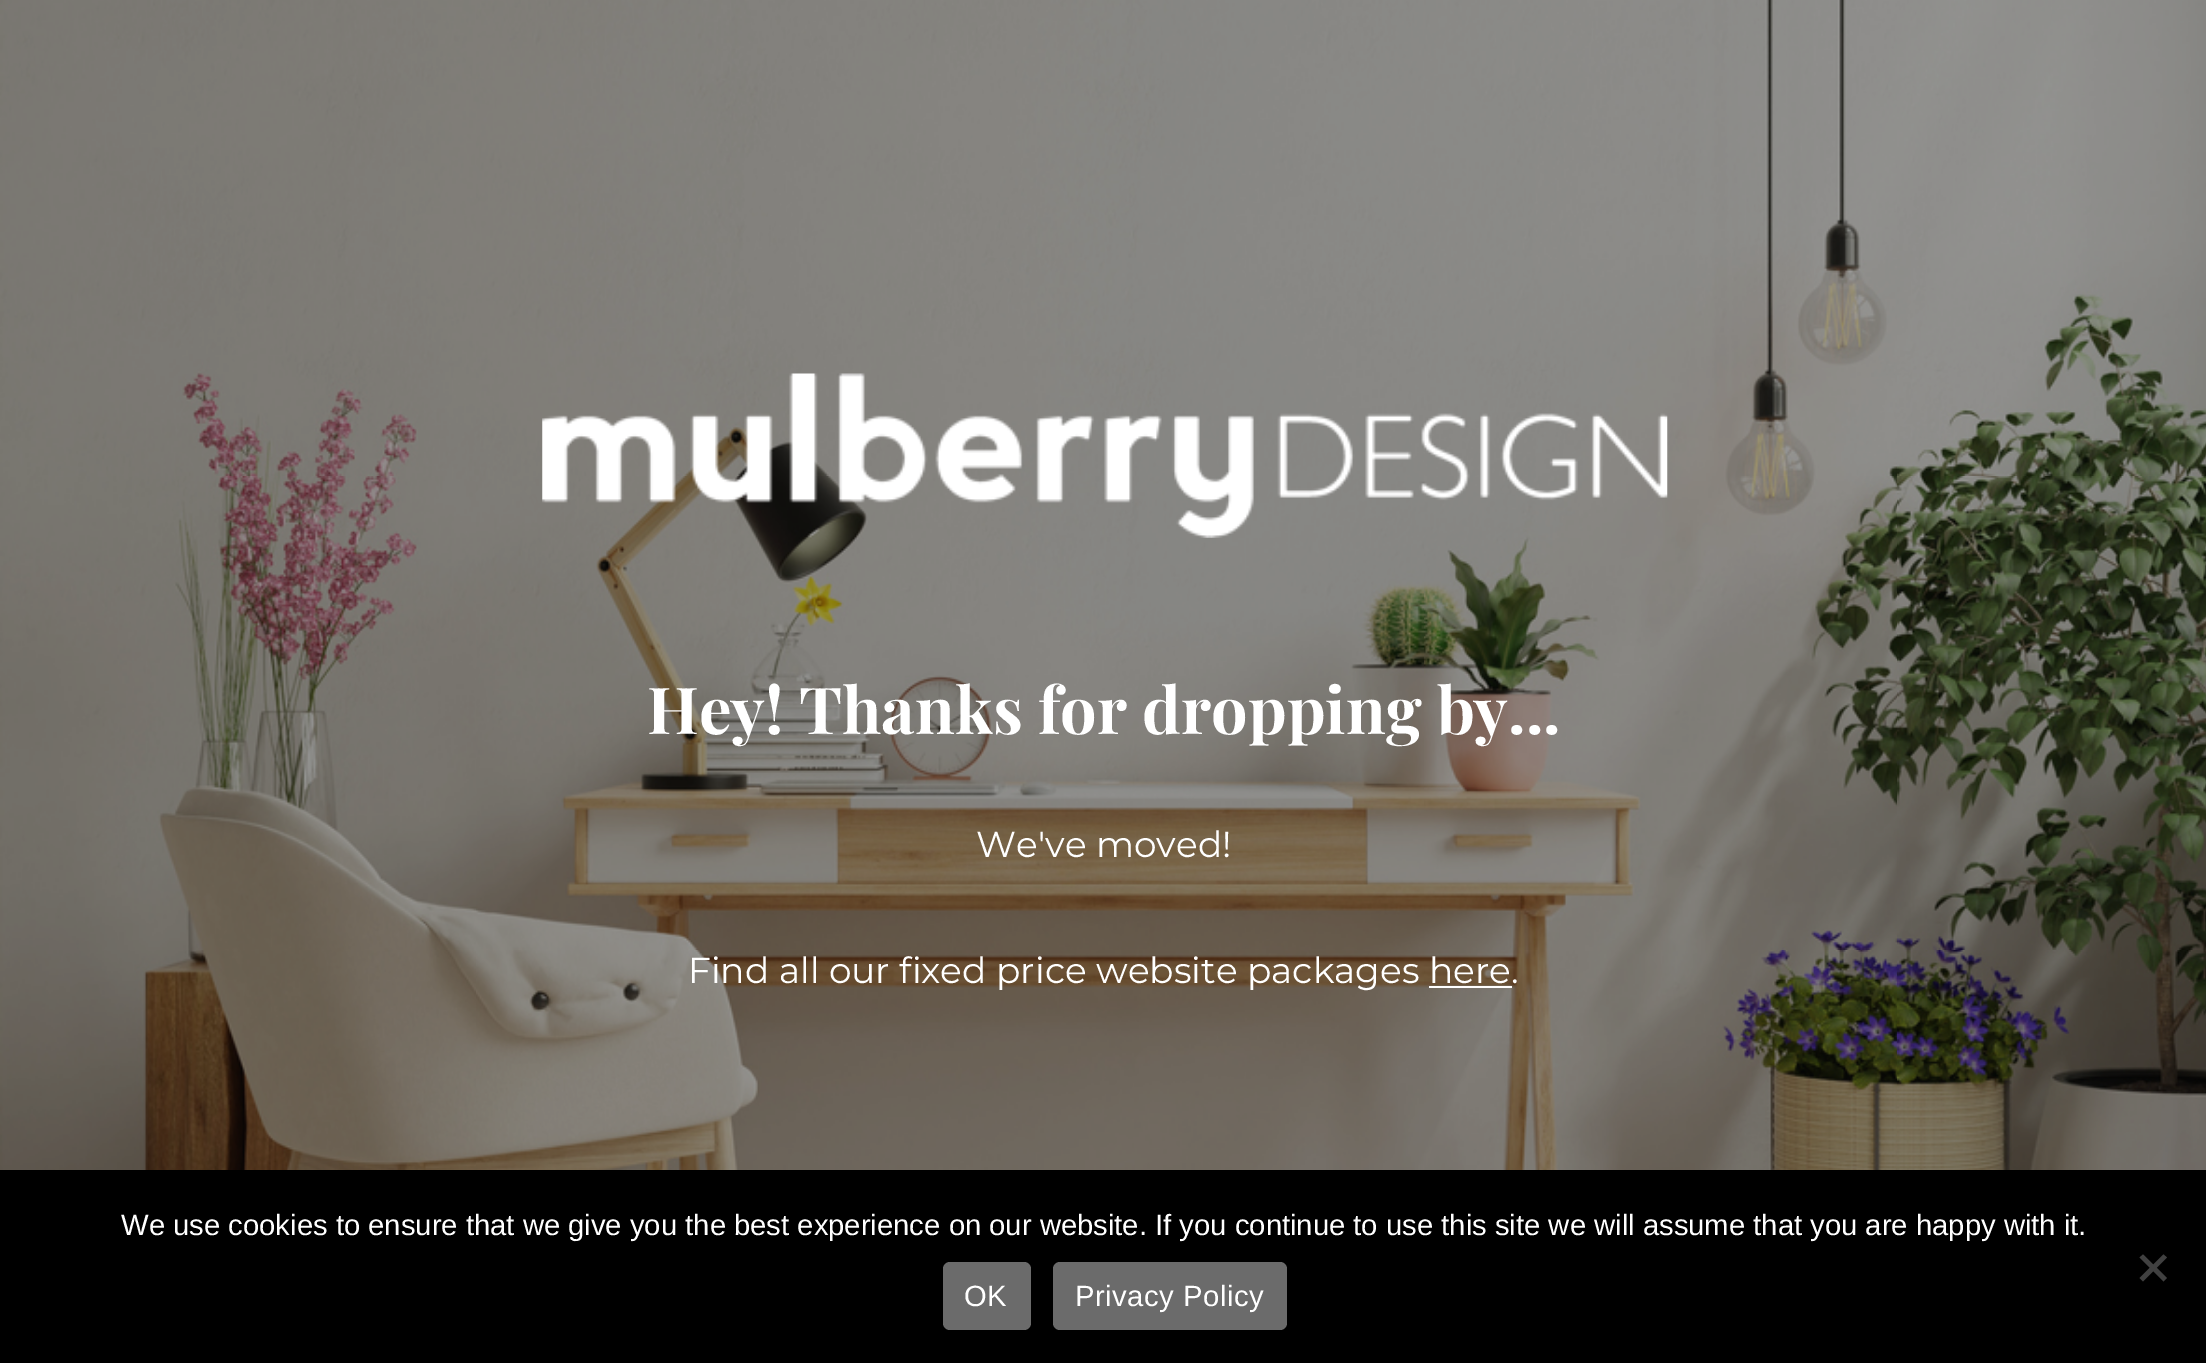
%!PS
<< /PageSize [2206 1363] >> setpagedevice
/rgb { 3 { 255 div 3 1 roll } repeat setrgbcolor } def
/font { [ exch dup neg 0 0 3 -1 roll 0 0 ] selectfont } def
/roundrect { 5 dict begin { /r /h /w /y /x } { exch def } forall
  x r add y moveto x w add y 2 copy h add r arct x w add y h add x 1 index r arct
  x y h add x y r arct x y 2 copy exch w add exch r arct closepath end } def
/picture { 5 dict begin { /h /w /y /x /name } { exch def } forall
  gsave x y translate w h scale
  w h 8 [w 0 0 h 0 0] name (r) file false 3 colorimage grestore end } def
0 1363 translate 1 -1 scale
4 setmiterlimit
255 255 255 rgb
0 0 2206 1363 rectfill
(img/1.rgb) 0 0 2206 1170 picture
(img/2.rgb) 542 373 1126 165 picture
1429 986 83 2 rectfill
0 0 0 rgb
0 1170 2206 193 rectfill
64 64 64 rgb
2163.5 1254.5 moveto 2167 1257.5 lineto 2143 1281.5 lineto 2139.5 1278 lineto closepath fill
2139.5 1257.5 moveto 2143 1254.5 lineto 2167 1278 lineto 2163.5 1281.5 lineto closepath fill
107 107 107 rgb
943 1262 88 68 7 roundrect fill
1053 1262 234 68 7 roundrect fill
/PlayfairDisplay-Bold 64.75 font
255 255 255 rgb
647 734 moveto (Hey! Thanks for dropping by...) show
/Montserrat-Regular 36 font
976 857 moveto (We've moved!) show
688 983 moveto (Find all our fixed price website packages here.) show
/LiberationSans-Regular 29.25 font
121 1235 moveto (We use cookies to ensure that we give you the best experience on our website. If you continue to use this site we will assume that you are happy with it.) show
964 1306 moveto 0.5 0 (OK) ashow
1075 1306 moveto 0.5 0 (Privacy Policy) ashow
showpage
